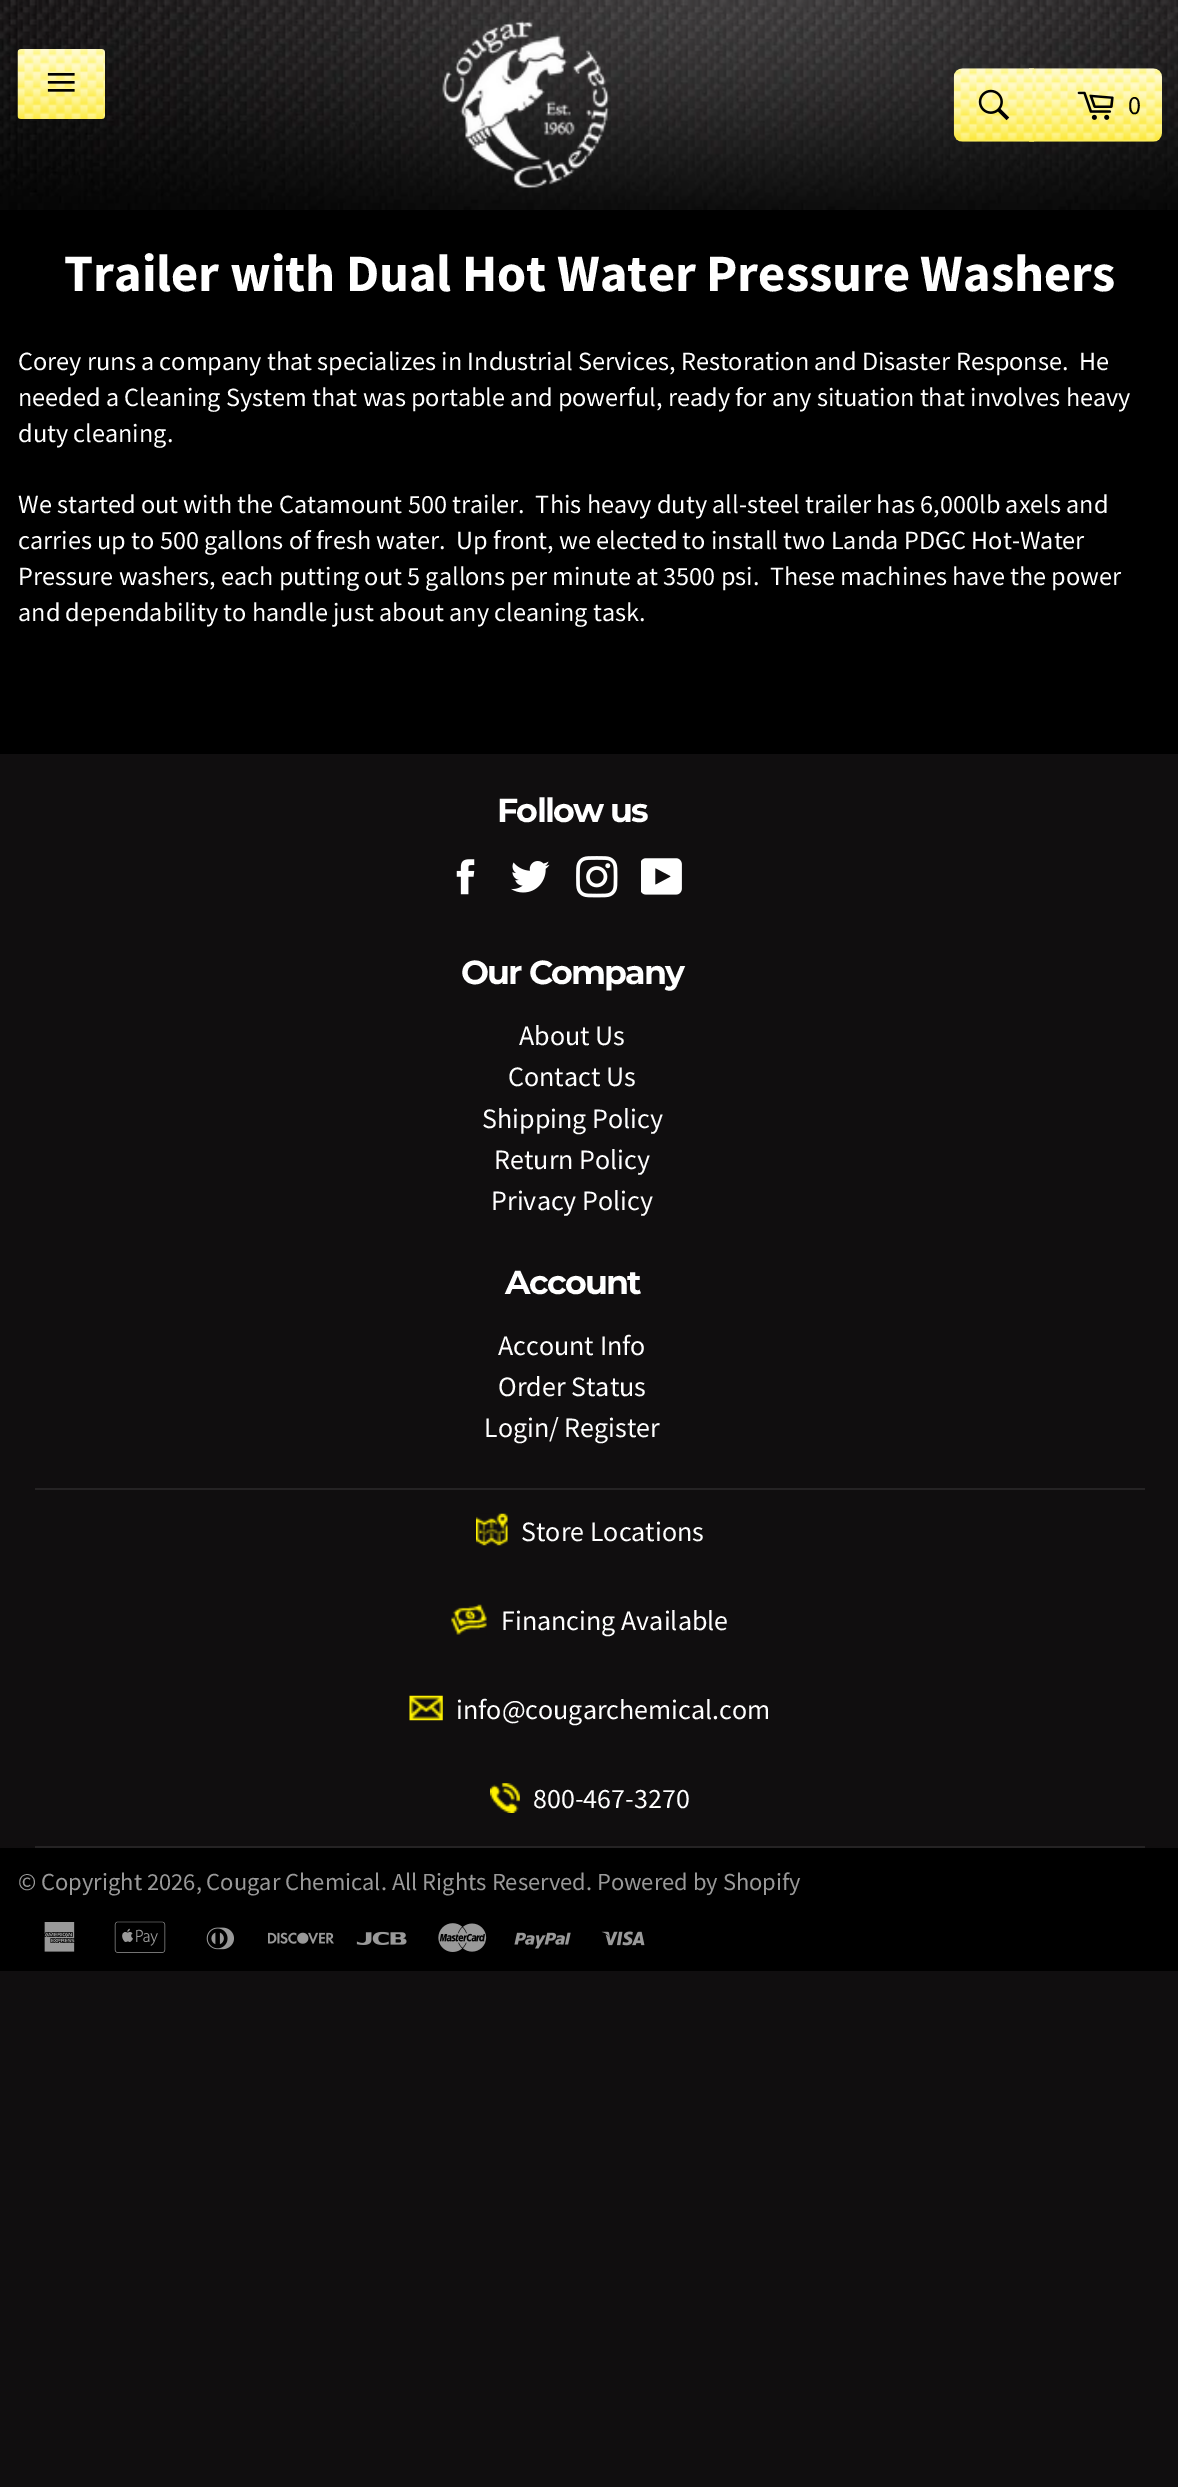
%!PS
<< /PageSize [1178 2487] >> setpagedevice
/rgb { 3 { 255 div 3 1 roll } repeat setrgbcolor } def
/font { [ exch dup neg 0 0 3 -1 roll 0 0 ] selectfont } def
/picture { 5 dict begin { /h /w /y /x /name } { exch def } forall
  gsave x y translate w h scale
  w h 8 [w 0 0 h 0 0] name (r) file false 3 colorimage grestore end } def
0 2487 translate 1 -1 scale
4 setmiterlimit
16 14 15 rgb
0 0 1178 2487 rectfill
0 0 0 rgb
0 210 1178 1761 rectfill
(img/1.rgb) 0 0 1178 210 picture
(img/2.rgb) 17 49 88 70 picture
(img/3.rgb) 47 72 28 20 picture
(img/4.rgb) 442 20 168 169 picture
(img/7.rgb) 1029 68 133 74 picture
(img/5.rgb) 953 68 81 74 picture
(img/6.rgb) 978 89 32 32 picture
(img/8.rgb) 1077 91 37 29 picture
16 14 15 rgb
0 754 1178 1094 rectfill
(img/9.rgb) 456 859 19 36 picture
(img/10.rgb) 511 861 39 32 picture
(img/11.rgb) 576 856 42 42 picture
(img/12.rgb) 641 858 41 37 picture
37 35 36 rgb
35 1488 1110 2 rectfill
35 1846 1110 2 rectfill
(img/13.rgb) 476 1513 32 33 picture
(img/14.rgb) 451 1604 36 31 picture
(img/15.rgb) 409 1695 34 26 picture
(img/16.rgb) 490 1783 30 30 picture
(img/17.rgb) 44 1922 31 30 picture
(img/18.rgb) 114 1921 52 32 picture
(img/19.rgb) 206 1927 28 23 picture
(img/20.rgb) 268 1932 66 12 picture
(img/21.rgb) 356 1931 51 14 picture
(img/22.rgb) 438 1923 49 29 picture
(img/23.rgb) 514 1932 57 17 picture
(img/24.rgb) 601 1931 44 15 picture
/SourceSansPro-Regular 26.25 font
0 0 0 rgb
1128 114 moveto (0) show
/SourceSansPro-Bold 52.5 font
255 255 255 rgb
64 291 moveto (Trailer with Dual Hot Water Pressure Washers) show
/SourceSansPro-Regular 26.25 font
[
  [(Corey runs a company that specializes in Industrial Services, Restoration and Disaster Response.  He) 18 370]
  [(needed a Cleaning System that was portable and powerful, ready for any situation that involves heavy) 18 406]
  [(duty cleaning.) 18 442]
  [(We started out with the Catamount 500 trailer.  This heavy duty all-steel trailer has 6,000lb axels and) 18 513]
  [(carries up to 500 gallons of fresh water.  Up front, we elected to install two Landa PDGC Hot-Water) 18 549]
  [(Pressure washers, each putting out 5 gallons per minute at 3500 psi.  These machines have the power) 18 585]
  [(and dependability to handle just about any cleaning task.) 18 621]
] { aload pop moveto show } forall
/Montserrat-Bold 33.25 font
497 822 moveto -1.75 0 (Follow us) ashow
461 984 moveto -1.75 0 (Our Company) ashow
/SourceSansPro-Regular 28 font
[
  [(About Us) 519 1045]
  [(Contact Us) 508 1086]
  [(Shipping Policy) 482 1128]
  [(Return Policy) 494 1169]
  [(Privacy Policy) 491 1210]
] { aload pop moveto show } forall
/Montserrat-Bold 33.25 font
505 1294 moveto -1.75 0 (Account) ashow
/SourceSansPro-Regular 28 font
[
  [(Account Info) 498 1355]
  [(Order Status) 498 1396]
  [(Login/ Register) 484 1437]
  [(Store Locations) 521 1541]
  [(Financing Available) 501 1630]
  [(info@cougarchemical.com) 456 1719]
  [(800-467-3270) 533 1808]
] { aload pop moveto show } forall
/SourceSansPro-Regular 24.5 font
153 153 153 rgb
18 1890 moveto (© Copyright 2026, Cougar Chemical. All Rights Reserved. Powered by Shopify) show
showpage
